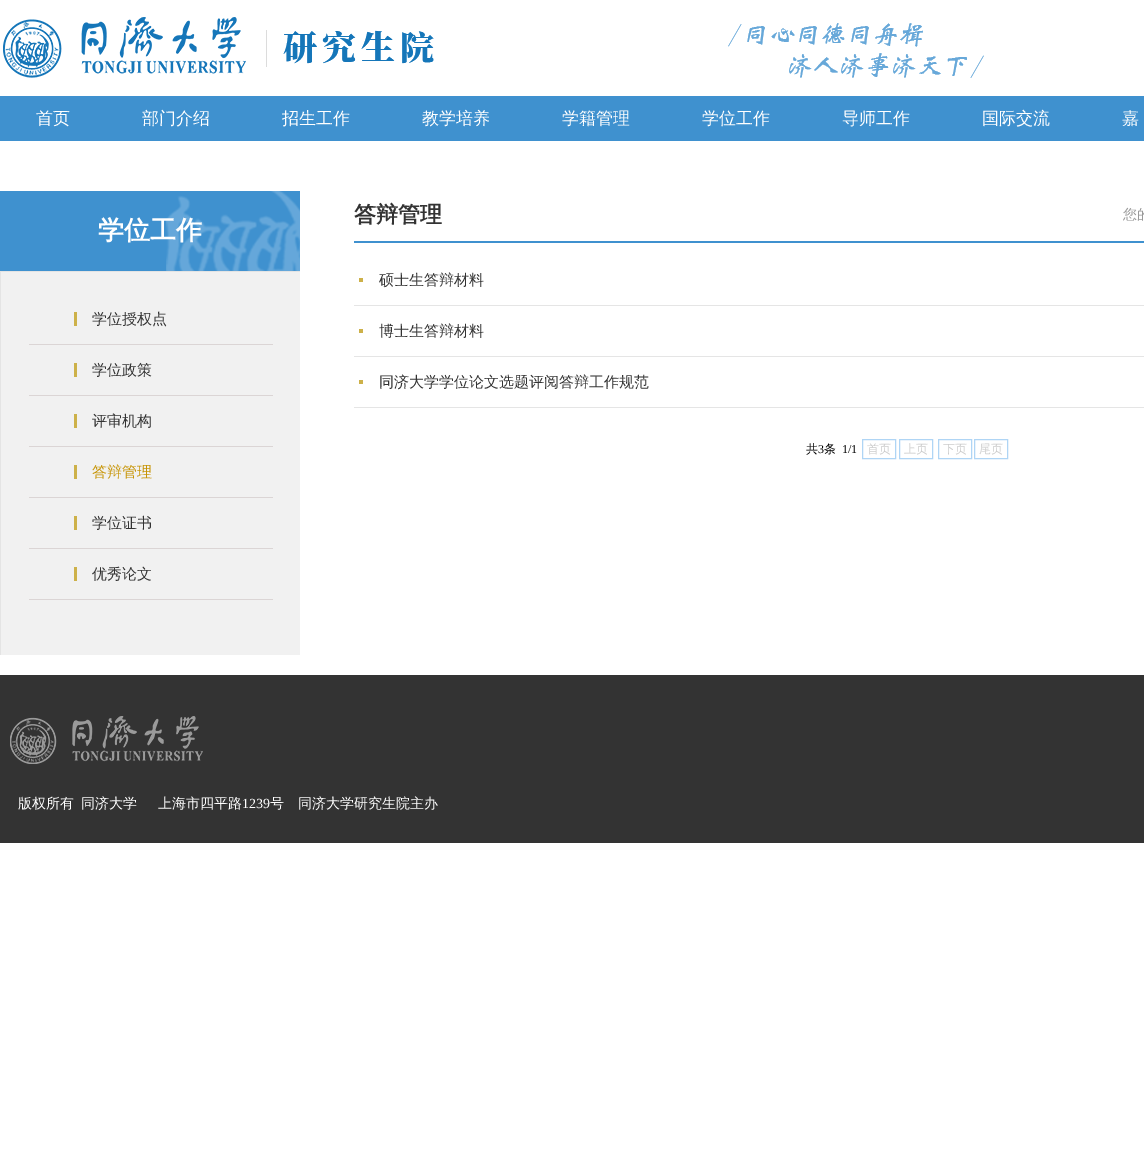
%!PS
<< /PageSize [1144 1176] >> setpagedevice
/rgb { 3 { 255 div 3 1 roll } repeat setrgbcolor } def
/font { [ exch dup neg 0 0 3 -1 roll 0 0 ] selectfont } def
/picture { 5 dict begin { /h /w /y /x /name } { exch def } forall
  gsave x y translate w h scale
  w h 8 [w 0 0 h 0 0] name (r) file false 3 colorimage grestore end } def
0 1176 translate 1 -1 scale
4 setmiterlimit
255 255 255 rgb
0 0 1144 1176 rectfill
(img/1.rgb) 728 23 256 55 picture
(img/2.rgb) 3 17 431 61 picture
63 145 207 rgb
0 96 1144 45 rectfill
(img/3.rgb) 0 191 300 80 picture
[
  [1 272 299 383 241 241 241]
  [0 271 300 1 228 228 228]
  [0 271 1 384 228 228 228]
  [74 312 3 14 205 177 73]
  [29 344 244 1 219 213 213]
  [74 363 3 14 205 177 73]
  [29 395 244 1 219 213 213]
  [74 414 3 14 205 177 73]
  [29 446 244 1 219 213 213]
  [74 465 3 14 205 177 73]
  [29 497 244 1 219 213 213]
  [74 516 3 14 205 177 73]
  [29 548 244 1 219 213 213]
  [74 567 3 14 205 177 73]
  [29 599 244 1 219 213 213]
  [354 241 790 2 63 145 207]
  [359 278 4 4 205 177 73]
  [354 305 790 1 229 229 229]
  [359 329 4 4 205 177 73]
  [354 356 790 1 229 229 229]
  [359 380 4 4 205 177 73]
  [354 407 790 1 229 229 229]
] { aload pop rgb rectfill } forall
175 213 245 rgb
862.5 439.5 33 19 rectstroke
899.5 439.5 33 19 rectstroke
938.5 439.5 33 19 rectstroke
974.5 439.5 33 19 rectstroke
51 51 51 rgb
0 675 1144 168 rectfill
(img/4.rgb) 10 716 193 48 picture
/WenQuanYiZenHei-Medium 17 font
255 255 255 rgb
[
  [(首页) 36 124]
  [(部门介绍) 142 124]
  [(招生工作) 282 124]
  [(教学培养) 422 124]
  [(学籍管理) 562 124]
  [(学位工作) 702 124]
  [(导师工作) 842 124]
  [(国际交流) 982 124]
  [(嘉) 1122 124]
] { aload pop moveto show } forall
/WenQuanYiZenHei-Bold 26 font
98 239 moveto (学位工作) show
/WenQuanYiZenHei-Medium 15 font
51 51 51 rgb
[
  [(学位授权点) 92 324]
  [(学位政策) 92 375]
  [(评审机构) 92 426]
] { aload pop moveto show } forall
199 148 4 rgb
92 477 moveto (答辩管理) show
51 51 51 rgb
92 528 moveto (学位证书) show
92 579 moveto (优秀论文) show
/WenQuanYiZenHei-Bold 22 font
354 222 moveto (答辩管理) show
/WenQuanYiZenHei-Medium 14 font
153 153 153 rgb
1123 219 moveto (您的) show
/WenQuanYiZenHei-Medium 15 font
51 51 51 rgb
[
  [(硕士生答辩材料) 379 285]
  [(博士生答辩材料) 379 336]
  [(同济大学学位论文选题评阅答辩工作规范) 379 387]
] { aload pop moveto show } forall
/WenQuanYiZenHei-Medium 12 font
0 0 0 rgb
806 453 moveto (共) show
/LiberationSerif-Regular 12 font
818 453 moveto (3) show
/WenQuanYiZenHei-Medium 12 font
824 453 moveto (条) show
/LiberationSerif-Regular 12 font
842 453 moveto (1/1) show
/WenQuanYiZenHei-Medium 12 font
204 204 204 rgb
[
  [(首页) 867 453]
  [(上页) 904 453]
  [(下页) 943 453]
  [(尾页) 979 453]
] { aload pop moveto show } forall
/WenQuanYiZenHei-Medium 14 font
255 255 255 rgb
[
  [(版权所有) 18 808]
  [(同济大学) 81 808]
  [(上海市四平路) 158 808]
] { aload pop moveto show } forall
/LiberationSerif-Regular 14 font
242 808 moveto (1239) show
/WenQuanYiZenHei-Medium 14 font
270 808 moveto (号) show
298 808 moveto (同济大学研究生院主办) show
showpage
